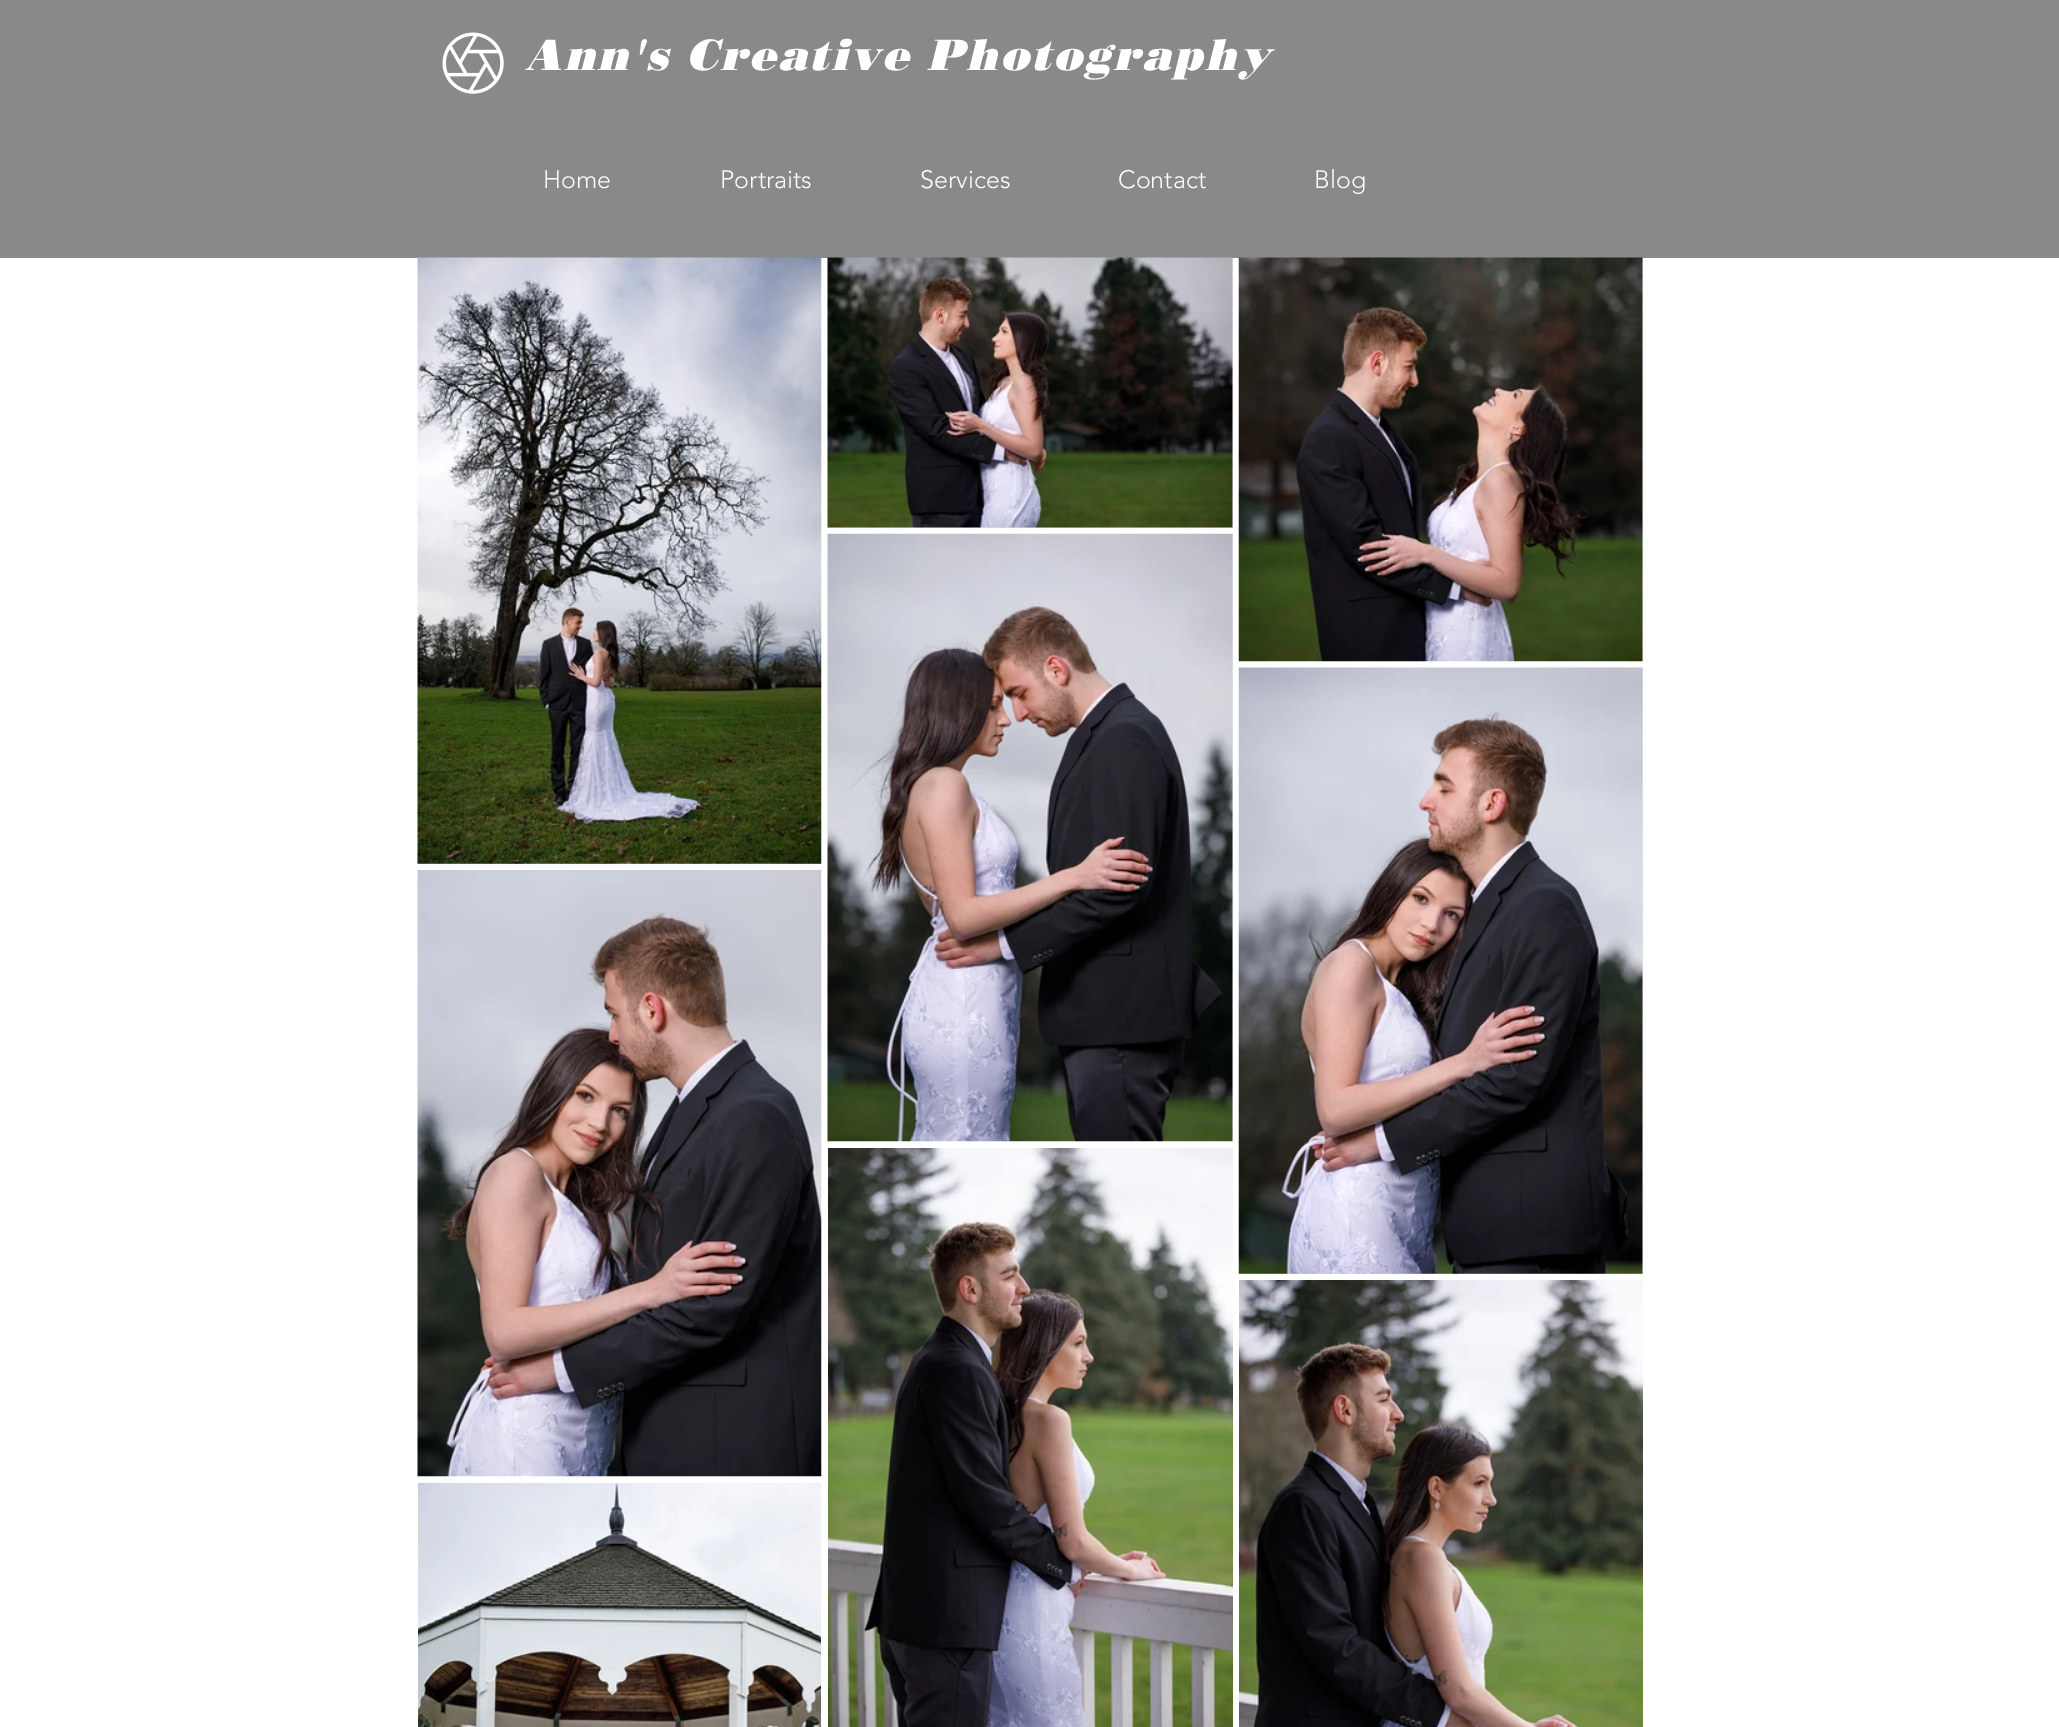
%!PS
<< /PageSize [2059 1727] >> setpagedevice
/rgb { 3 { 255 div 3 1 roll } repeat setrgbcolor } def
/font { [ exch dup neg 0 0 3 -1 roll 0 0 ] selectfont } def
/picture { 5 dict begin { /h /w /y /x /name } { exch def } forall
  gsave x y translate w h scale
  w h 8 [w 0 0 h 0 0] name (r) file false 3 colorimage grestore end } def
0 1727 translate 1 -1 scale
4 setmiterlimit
255 255 255 rgb
0 0 2059 1727 rectfill
137 137 137 rgb
0 0 2059 258 rectfill
(img/1.rgb) 442 32 62 62 picture
(img/2.rgb) 417 257 405 607 picture
228 228 235 rgb
828 258 405 270 rectfill
(img/3.rgb) 827 257 406 271 picture
1642 258 1 403 rectfill
(img/4.rgb) 1238 257 405 405 picture
(img/5.rgb) 417 870 405 607 picture
1232 534 1 607 rectfill
(img/6.rgb) 827 533 406 609 picture
1239 668 404 606 rectfill
(img/7.rgb) 1238 667 405 607 picture
(img/8.rgb) 418 1483 403 244 picture
(img/9.rgb) 828 1148 405 579 picture
(img/10.rgb) 1239 1280 404 447 picture
/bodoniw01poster-BlackItalic 43.75 font
255 255 255 rgb
525 70 moveto 2.2 0 (Ann's Creative Photography) ashow
/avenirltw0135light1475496-Light 25 font
[
  [(Home) 543 188]
  [(Portraits) 720 188]
  [(Services) 920 188]
  [(Contact) 1118 188]
  [(Blog) 1314 188]
] { aload pop moveto show } forall
showpage
